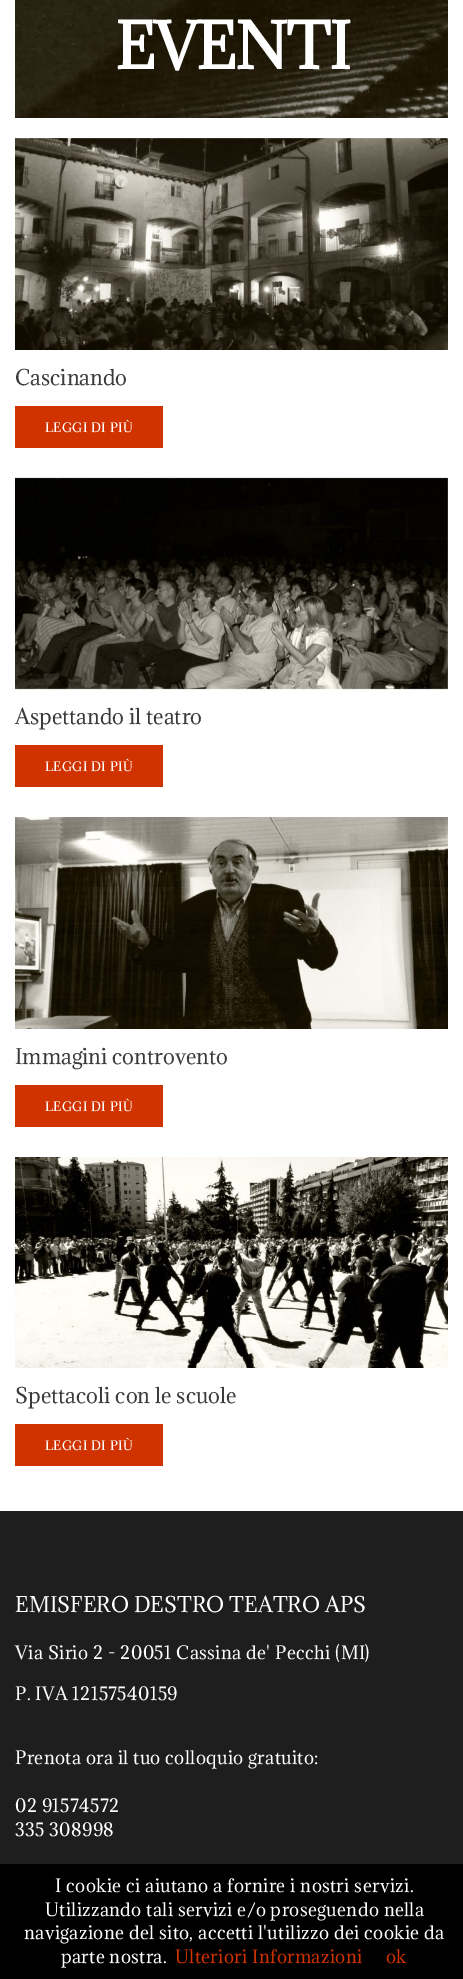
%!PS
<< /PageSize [463 1979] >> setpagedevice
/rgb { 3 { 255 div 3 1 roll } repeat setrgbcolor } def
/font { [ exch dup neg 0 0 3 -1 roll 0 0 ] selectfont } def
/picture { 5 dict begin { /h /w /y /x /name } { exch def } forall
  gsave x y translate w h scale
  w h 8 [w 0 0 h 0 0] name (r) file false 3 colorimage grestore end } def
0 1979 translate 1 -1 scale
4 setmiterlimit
255 255 255 rgb
0 0 463 1979 rectfill
(img/1.rgb) 15 0 433 118 picture
(img/2.rgb) 15 138 433 212 picture
208 50 0 rgb
15 406 148 42 rectfill
(img/3.rgb) 15 477 433 213 picture
15 745 148 42 rectfill
(img/4.rgb) 15 817 433 212 picture
15 1085 148 42 rectfill
(img/5.rgb) 15 1157 433 211 picture
[
  [15 1424 148 42 208 50 0]
  [0 1511 463 353 30 30 30]
  [0 1864 463 115 0 0 0]
] { aload pop rgb rectfill } forall
/Adamina-Bold 60 font
255 255 255 rgb
115 69 moveto -2 0 (EVENTI) ashow
/Adamina-Regular 20 font
58 58 58 rgb
15 385 moveto (Cascinando) show
/Adamina-Regular 12 font
255 255 255 rgb
45 432 moveto 0.35 0 (LEGGI DI PIÙ) ashow
/Adamina-Regular 20 font
58 58 58 rgb
15 724 moveto (Aspettando il teatro) show
/Adamina-Regular 12 font
255 255 255 rgb
45 771 moveto 0.35 0 (LEGGI DI PIÙ) ashow
/Adamina-Regular 20 font
58 58 58 rgb
15 1064 moveto (Immagini controvento) show
/Adamina-Regular 12 font
255 255 255 rgb
45 1111 moveto 0.35 0 (LEGGI DI PIÙ) ashow
/Adamina-Regular 20 font
58 58 58 rgb
15 1403 moveto (Spettacoli con le scuole) show
/Adamina-Regular 12 font
255 255 255 rgb
45 1450 moveto 0.35 0 (LEGGI DI PIÙ) ashow
/Adamina-Regular 20 font
15 1612 moveto (EMISFERO DESTRO TEATRO APS) show
/Adamina-Regular 17 font
15 1659 moveto 0.35 0 (Via Sirio 2 - 20051 Cassina de' Pecchi \(MI\)) ashow
15 1700 moveto 0.35 0 (P. IVA 12157540159) ashow
15 1764 moveto 0.35 0 (Prenota ora il tuo colloquio gratuito:) ashow
15 1812 moveto 0.35 0 (02 91574572) ashow
15 1836 moveto 0.35 0 (335 308998) ashow
55 1892 moveto 0.35 0 (I cookie ci aiutano a fornire i nostri servizi.) ashow
45 1916 moveto 0.35 0 (Utilizzando tali servizi e/o proseguendo nella) ashow
24 1939 moveto 0.35 0 (navigazione del sito, accetti l'utilizzo dei cookie da) ashow
61 1963 moveto 0.35 0 (parte nostra.) ashow
208 50 0 rgb
175 1963 moveto 0.35 0 (Ulteriori Informazioni) ashow
386 1963 moveto 0.35 0 (ok) ashow
showpage
